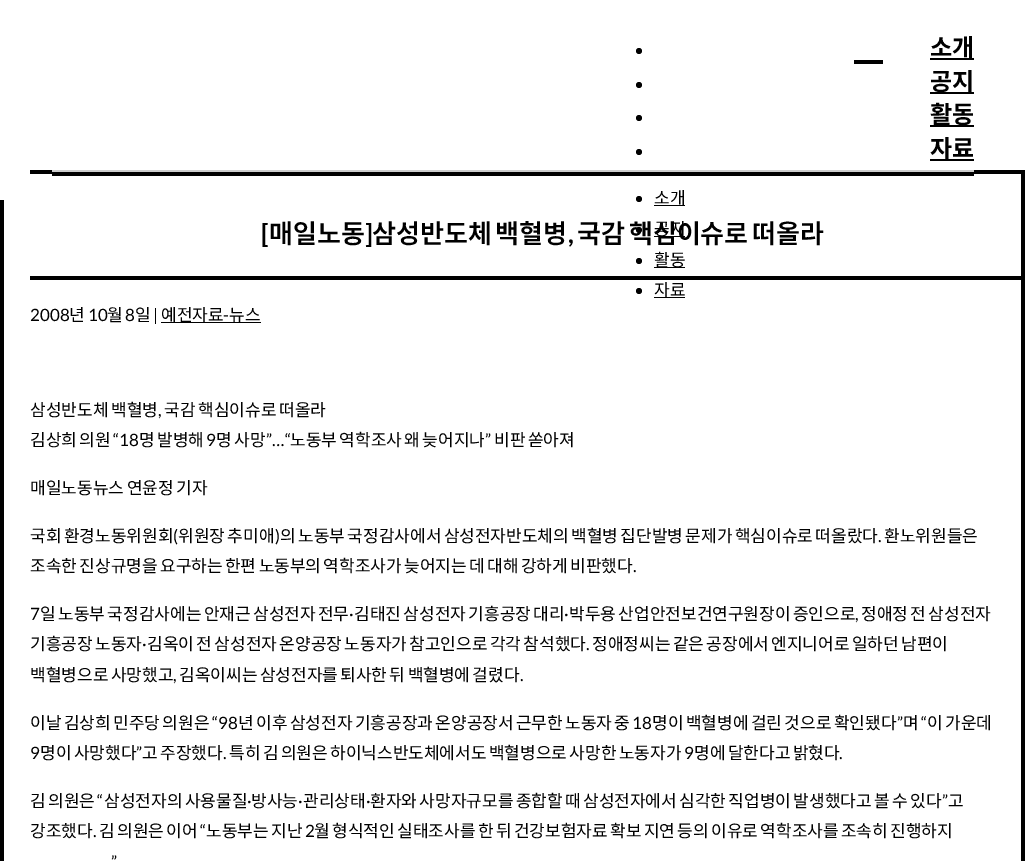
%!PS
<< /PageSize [1025 861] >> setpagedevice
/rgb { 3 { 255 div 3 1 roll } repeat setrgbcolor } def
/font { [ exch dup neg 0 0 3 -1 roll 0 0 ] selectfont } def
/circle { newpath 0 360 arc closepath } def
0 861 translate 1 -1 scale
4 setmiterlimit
255 255 255 rgb
0 0 1025 861 rectfill
0 0 0 rgb
52 174 922 2 rectfill
639 51 3 circle fill
930 58 44 2 rectfill
639 85 3 circle fill
930 92 44 2 rectfill
639 118 3 circle fill
930 125 44 2 rectfill
639 152 3 circle fill
930 159 44 2 rectfill
639 199 3 circle fill
654 205 31 1 rectfill
639 230 3 circle fill
654 236 31 1 rectfill
639 261 3 circle fill
654 267 31 1 rectfill
639 291 3 circle fill
[
  [654 297 31 1 0 0 0]
  [854 60 29 4 0 0 0]
  [30 276 995 4 0 0 0]
  [161 322 100 1 0 0 0]
  [0 200 4 661 0 0 0]
  [30 170 995 4 0 0 0]
  [52 170 922 2 204 204 204]
  [1021 170 4 691 0 0 0]
] { aload pop rgb rectfill } forall
/NotoSansKR-Bold 24 font
[
  [(소개) 930 56]
  [(공지) 930 90]
  [(활동) 930 123]
  [(자료) 930 157]
] { aload pop moveto show } forall
/NotoSansKR-Regular 17 font
[
  [(소개) 654 204]
  [(활동) 654 266]
  [(자료) 654 296]
] { aload pop moveto show } forall
/Lato-Bold 26 font
261 243 moveto ([) show
/NotoSansKR-SemiBold 26 font
269 243 moveto (매일노동) show
/Lato-Bold 26 font
365 243 moveto (]) show
/NotoSansKR-SemiBold 26 font
372 243 moveto -2 0 32 (삼성반도체 백혈병) widthshow
/Lato-Bold 26 font
568 243 moveto (,) show
/NotoSansKR-SemiBold 26 font
577 243 moveto -2 0 32 (국감 핵심이슈로 떠올라) widthshow
/NotoSansKR-Regular 17 font
654 235 moveto (공지) show
/Lato-Regular 17 font
30 321 moveto (2008) show
/NotoSansKR-Regular 17 font
69 321 moveto (년) show
/Lato-Regular 17 font
88 321 moveto (10) show
/NotoSansKR-Regular 17 font
107 321 moveto (월) show
/Lato-Regular 17 font
125 321 moveto (8) show
/NotoSansKR-Regular 17 font
135 321 moveto (일) show
/Lato-Regular 17 font
153 321 moveto (|) show
/NotoSansKR-Regular 17 font
161 321 moveto (예전자료) show
/Lato-Regular 17 font
223 321 moveto (-) show
/NotoSansKR-Regular 17 font
229 321 moveto (뉴스) show
30 416 moveto -1 0 32 (삼성반도체 백혈병) widthshow
/Lato-Regular 17 font
158 416 moveto (,) show
/NotoSansKR-Regular 17 font
164 416 moveto -1 0 32 (국감 핵심이슈로 떠올라) widthshow
30 446 moveto -1.4 0 32 (김상희 의원) widthshow
/Lato-Regular 17 font
113 446 moveto (“18) show
/NotoSansKR-Regular 17 font
139 446 moveto -1.4 0 32 (명 발병해) widthshow
/Lato-Regular 17 font
206 446 moveto (9) show
/NotoSansKR-Regular 17 font
216 446 moveto -1.4 0 32 (명 사망) widthshow
/Lato-Regular 17 font
266 446 moveto (”…“) show
/NotoSansKR-Regular 17 font
290 446 moveto -1.4 0 32 (노동부 역학조사 왜 늦어지나) widthshow
/Lato-Regular 17 font
485 446 moveto (”) show
/NotoSansKR-Regular 17 font
494 446 moveto -1.4 0 32 (비판 쏟아져) widthshow
30 494 moveto -1 0 32 (매일노동뉴스 연윤정 기자) widthshow
30 542 moveto -1.4 0 32 (국회 환경노동위원회) widthshow
/Lato-Regular 17 font
173 542 moveto (\() show
/NotoSansKR-Regular 17 font
178 542 moveto -1.4 0 32 (위원장 추미애) widthshow
/Lato-Regular 17 font
275 542 moveto (\)) show
/NotoSansKR-Regular 17 font
280 542 moveto -1.4 0 32 (의 노동부 국정감사에서 삼성전자반도체의 백혈병 집단발병 문제가 핵심이슈로 떠올랐다) widthshow
/Lato-Regular 17 font
878 542 moveto (.) show
/NotoSansKR-Regular 17 font
884 542 moveto (환노위원들은) show
30 572 moveto -1.4 0 32 (조속한 진상규명을 요구하는 한편 노동부의 역학조사가 늦어지는 데 대해 강하게 비판했다) widthshow
/Lato-Regular 17 font
633 572 moveto (.) show
30 620 moveto (7) show
/NotoSansKR-Regular 17 font
40 620 moveto -1.4 0 32 (일 노동부 국정감사에는 안재근 삼성전자 전무) widthshow
/Lato-Regular 17 font
349 620 moveto (·) show
/NotoSansKR-Regular 17 font
354 620 moveto -1.4 0 32 (김태진 삼성전자 기흥공장 대리) widthshow
/Lato-Regular 17 font
564 620 moveto (·) show
/NotoSansKR-Regular 17 font
569 620 moveto -1.4 0 32 (박두용 산업안전보건연구원장이 증인으로) widthshow
861 620 moveto -1.4 0 32 (정애정 전 삼성전자) widthshow
/Lato-Regular 17 font
855 620 moveto (,) show
/NotoSansKR-Regular 17 font
30 650 moveto -1.4 0 32 (기흥공장 노동자) widthshow
/Lato-Regular 17 font
142 650 moveto (·) show
/NotoSansKR-Regular 17 font
147 650 moveto -1.4 0 32 (김옥이 전 삼성전자 온양공장 노동자가 참고인으로 각각 참석했다) widthshow
592 650 moveto -1.4 0 32 (정애정씨는 같은 공장에서 엔지니어로 일하던 남편이) widthshow
/Lato-Regular 17 font
586 650 moveto (.) show
/NotoSansKR-Regular 17 font
30 681 moveto -1.4 0 32 (백혈병으로 사망했고) widthshow
/Lato-Regular 17 font
173 681 moveto (,) show
/NotoSansKR-Regular 17 font
179 681 moveto -1.4 0 32 (김옥이씨는 삼성전자를 퇴사한 뒤 백혈병에 걸렸다) widthshow
/Lato-Regular 17 font
520 681 moveto (.) show
/NotoSansKR-Regular 17 font
30 729 moveto -1.4 0 32 (이날 김상희 민주당 의원은) widthshow
/Lato-Regular 17 font
212 729 moveto (“98) show
/NotoSansKR-Regular 17 font
238 729 moveto -1.4 0 32 (년 이후 삼성전자 기흥공장과 온양공장서 근무한 노동자 중) widthshow
/Lato-Regular 17 font
632 729 moveto (18) show
/NotoSansKR-Regular 17 font
652 729 moveto -1.4 0 32 (명이 백혈병에 걸린 것으로 확인됐다) widthshow
/Lato-Regular 17 font
897 729 moveto (”) show
/NotoSansKR-Regular 17 font
903 729 moveto (며) show
/Lato-Regular 17 font
921 729 moveto (“) show
/NotoSansKR-Regular 17 font
927 729 moveto -1.4 0 32 (이 가운데) widthshow
/Lato-Regular 17 font
30 759 moveto (9) show
/NotoSansKR-Regular 17 font
40 759 moveto -1.4 0 32 (명이 사망했다) widthshow
/Lato-Regular 17 font
136 759 moveto (”) show
/NotoSansKR-Regular 17 font
142 759 moveto -1.4 0 32 (고 주장했다) widthshow
/Lato-Regular 17 font
223 759 moveto (.) show
/NotoSansKR-Regular 17 font
229 759 moveto -1.4 0 32 (특히 김 의원은 하이닉스반도체에서도 백혈병으로 사망한 노동자가) widthshow
/Lato-Regular 17 font
684 759 moveto (9) show
/NotoSansKR-Regular 17 font
694 759 moveto -1.4 0 32 (명에 달한다고 밝혔다) widthshow
/Lato-Regular 17 font
839 759 moveto (.) show
/NotoSansKR-Regular 17 font
30 807 moveto -1.4 0 32 (김 의원은) widthshow
/Lato-Regular 17 font
97 807 moveto (“) show
/NotoSansKR-Regular 17 font
104 807 moveto -1.4 0 32 (삼성전자의 사용물질) widthshow
/Lato-Regular 17 font
247 807 moveto (·) show
/NotoSansKR-Regular 17 font
251 807 moveto (방사능) show
/Lato-Regular 17 font
298 807 moveto (·) show
/NotoSansKR-Regular 17 font
303 807 moveto (관리상태) show
/Lato-Regular 17 font
366 807 moveto (·) show
/NotoSansKR-Regular 17 font
370 807 moveto -1.4 0 32 (환자와 사망자규모를 종합할 때 삼성전자에서 심각한 직업병이 발생했다고 볼 수 있다) widthshow
/Lato-Regular 17 font
942 807 moveto (”) show
/NotoSansKR-Regular 17 font
948 807 moveto (고) show
30 837 moveto (강조했다) show
/Lato-Regular 17 font
93 837 moveto (.) show
/NotoSansKR-Regular 17 font
99 837 moveto -1.4 0 32 (김 의원은 이어) widthshow
/Lato-Regular 17 font
200 837 moveto (“) show
/NotoSansKR-Regular 17 font
206 837 moveto -1.4 0 32 (노동부는 지난) widthshow
/Lato-Regular 17 font
305 837 moveto (2) show
/NotoSansKR-Regular 17 font
314 837 moveto -1.4 0 32 (월 형식적인 실태조사를 한 뒤 건강보험자료 확보 지연 등의 이유로 역학조사를 조속히 진행하지) widthshow
/Lato-Regular 17 font
111 868 moveto (”) show
showpage
